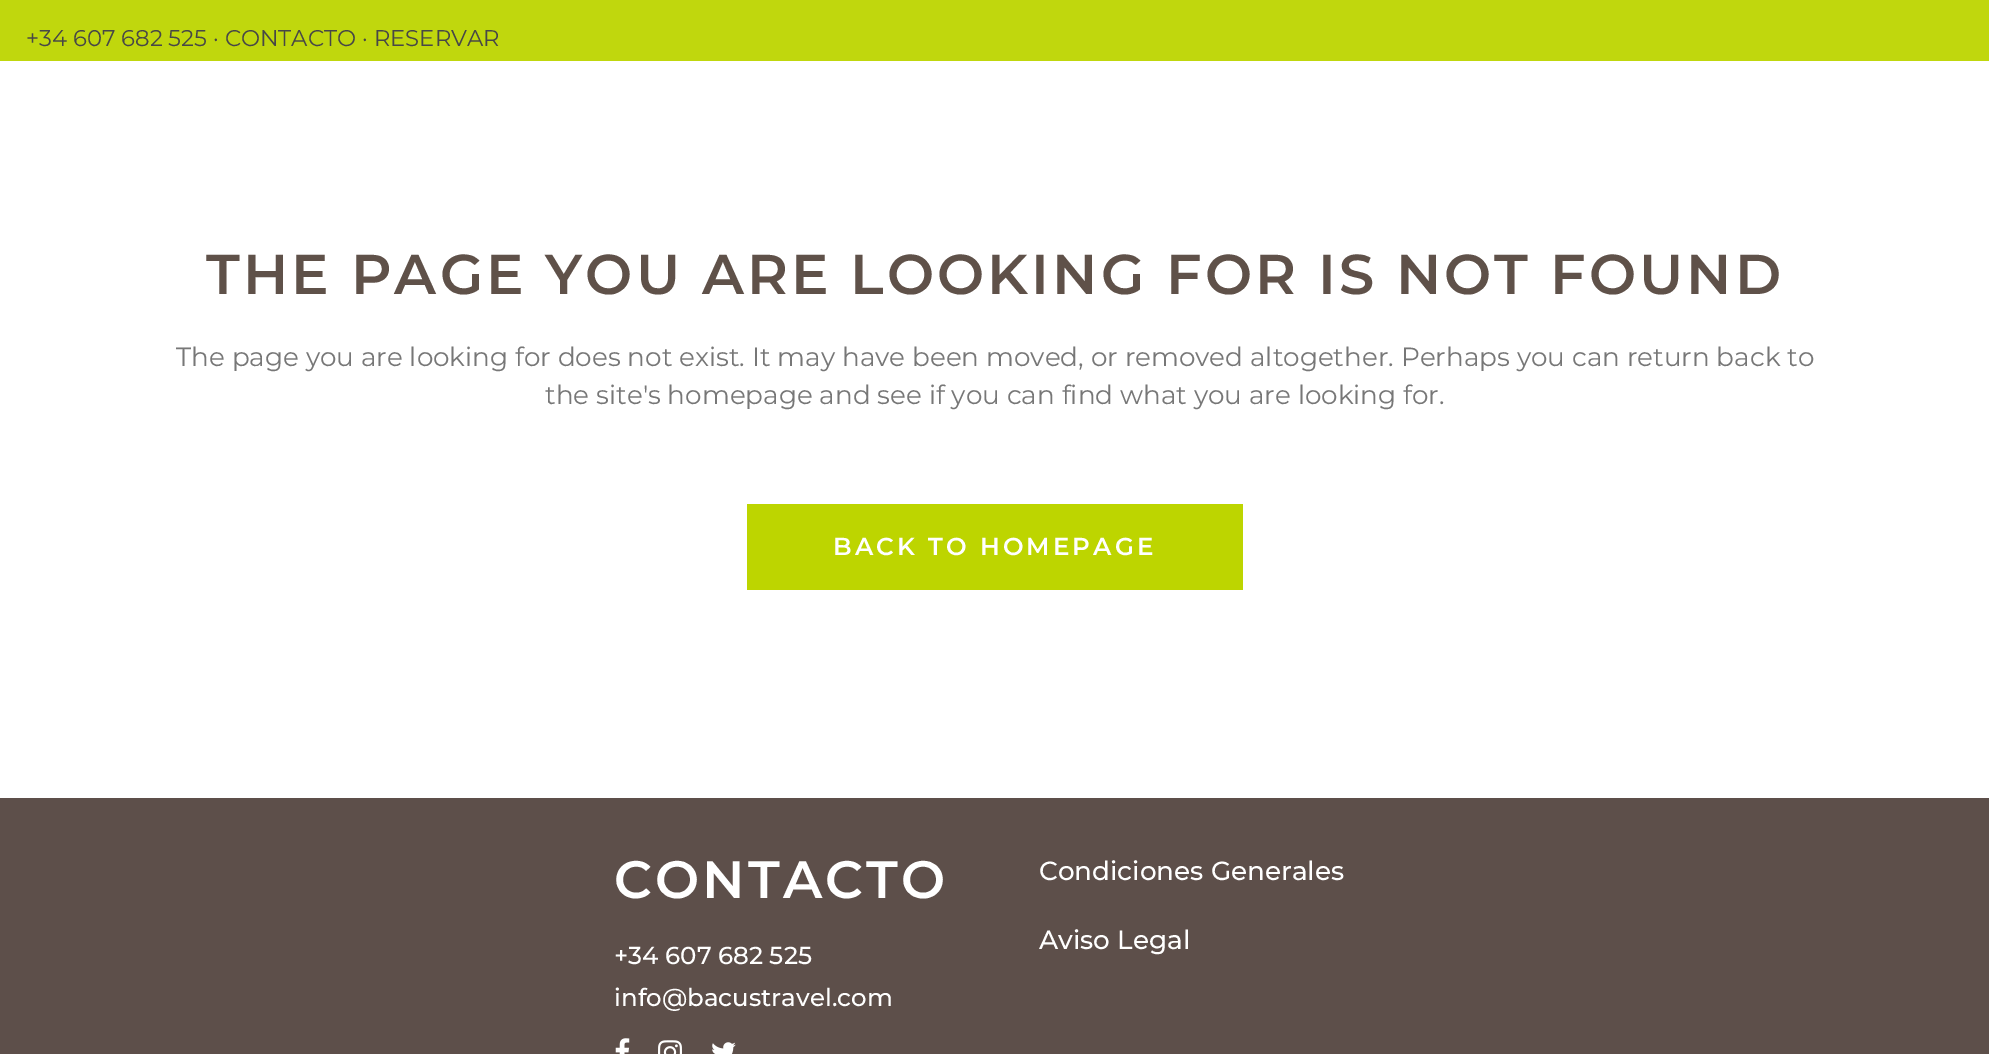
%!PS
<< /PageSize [1989 1054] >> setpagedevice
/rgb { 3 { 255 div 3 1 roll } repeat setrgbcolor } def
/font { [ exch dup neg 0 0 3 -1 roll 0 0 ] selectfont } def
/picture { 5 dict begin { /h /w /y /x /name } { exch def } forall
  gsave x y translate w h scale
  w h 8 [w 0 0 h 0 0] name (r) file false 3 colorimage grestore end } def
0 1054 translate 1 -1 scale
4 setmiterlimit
255 255 255 rgb
0 0 1989 1054 rectfill
[
  [0 0 1989 61 192 215 13]
  [747 504 496 86 189 213 0]
  [0 798 1989 256 93 79 74]
] { aload pop rgb rectfill } forall
(img/1.rgb) 615 1038 15 16 picture
(img/2.rgb) 658 1040 24 14 picture
(img/3.rgb) 712 1042 24 12 picture
/Montserrat-Regular 22.75 font
71 71 71 rgb
26 46 moveto (+34 607 682 525 · CONTACTO · RESERVAR) show
/Montserrat-SemiBold 56 font
95 81 73 rgb
206 294 moveto 3.15 0 (THE PAGE YOU ARE LOOKING FOR IS NOT FOUND) ashow
/Montserrat-Regular 26.25 font
119 119 119 rgb
176 366 moveto (The page you are looking for does not exist. It may have been moved, or removed altogether. Perhaps you can return back to) show
545 404 moveto (the site's homepage and see if you can find what you are looking for.) show
/Montserrat-SemiBold 24.5 font
255 255 255 rgb
833 555 moveto 3.15 0 (BACK TO HOMEPAGE) ashow
/Montserrat-SemiBold 52.5 font
614 898 moveto 3.15 0 (CONTACTO) ashow
/Montserrat-Medium 24.5 font
614 964 moveto (+34 607 682 525) show
614 1006 moveto (info@bacustravel.com) show
/Montserrat-Medium 26.25 font
1039 880 moveto (Condiciones Generales) show
1039 949 moveto (Aviso Legal) show
showpage
